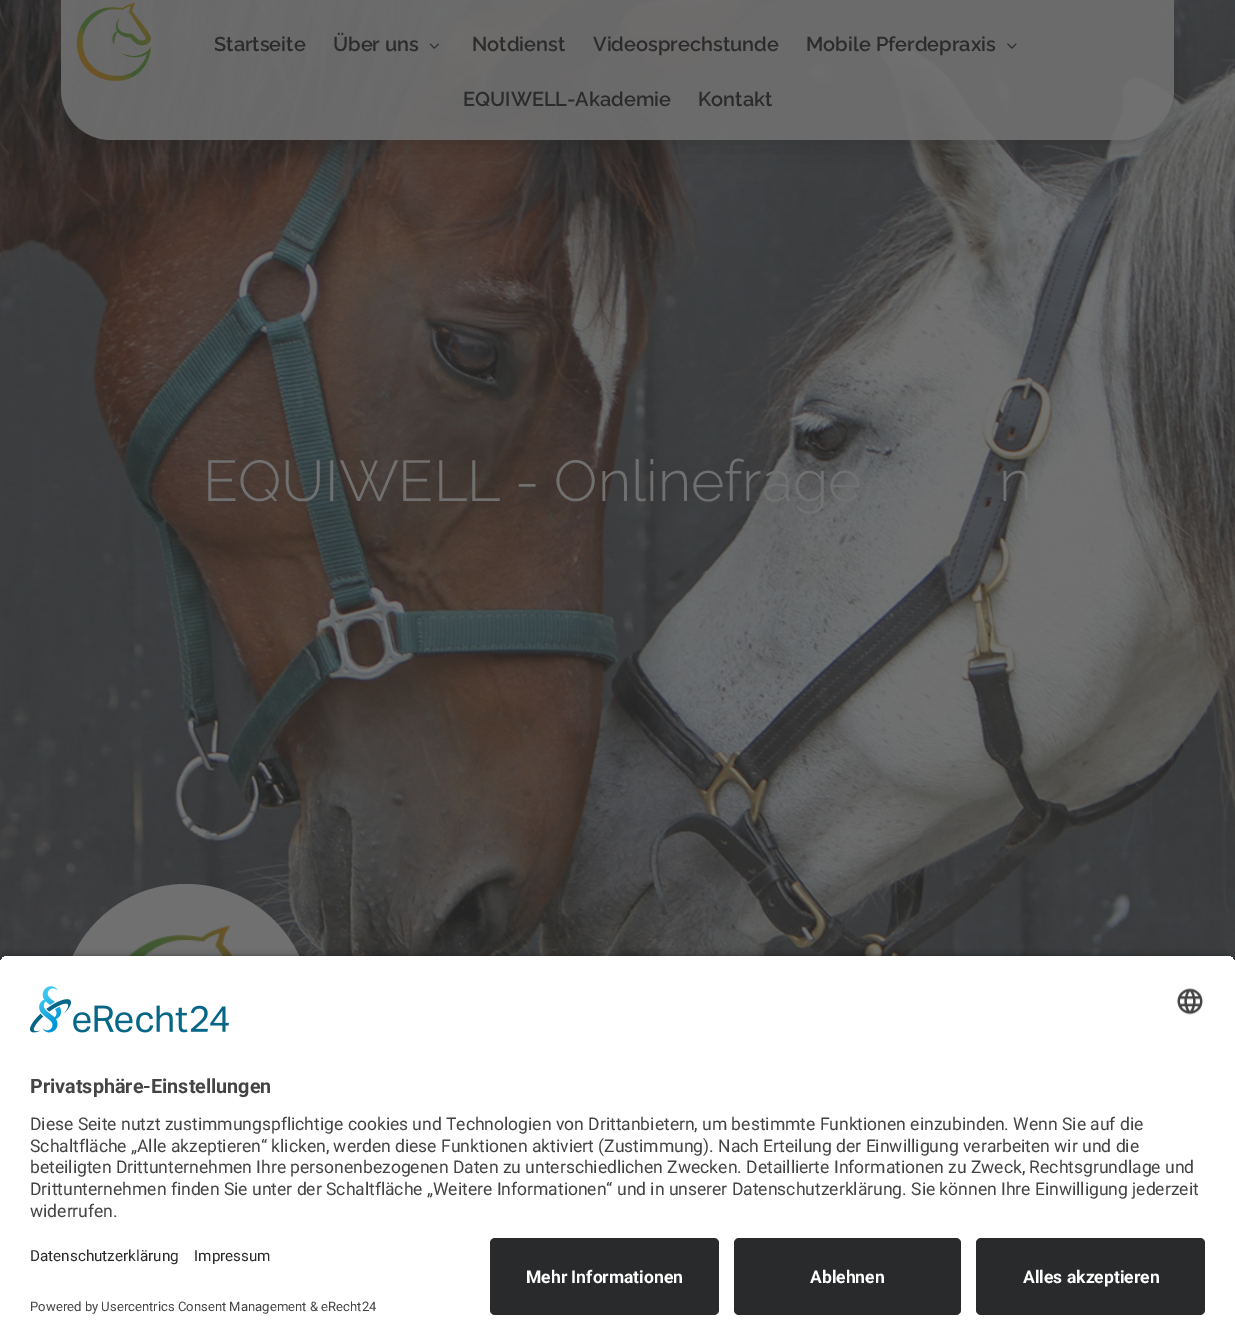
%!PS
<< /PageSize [1235 1344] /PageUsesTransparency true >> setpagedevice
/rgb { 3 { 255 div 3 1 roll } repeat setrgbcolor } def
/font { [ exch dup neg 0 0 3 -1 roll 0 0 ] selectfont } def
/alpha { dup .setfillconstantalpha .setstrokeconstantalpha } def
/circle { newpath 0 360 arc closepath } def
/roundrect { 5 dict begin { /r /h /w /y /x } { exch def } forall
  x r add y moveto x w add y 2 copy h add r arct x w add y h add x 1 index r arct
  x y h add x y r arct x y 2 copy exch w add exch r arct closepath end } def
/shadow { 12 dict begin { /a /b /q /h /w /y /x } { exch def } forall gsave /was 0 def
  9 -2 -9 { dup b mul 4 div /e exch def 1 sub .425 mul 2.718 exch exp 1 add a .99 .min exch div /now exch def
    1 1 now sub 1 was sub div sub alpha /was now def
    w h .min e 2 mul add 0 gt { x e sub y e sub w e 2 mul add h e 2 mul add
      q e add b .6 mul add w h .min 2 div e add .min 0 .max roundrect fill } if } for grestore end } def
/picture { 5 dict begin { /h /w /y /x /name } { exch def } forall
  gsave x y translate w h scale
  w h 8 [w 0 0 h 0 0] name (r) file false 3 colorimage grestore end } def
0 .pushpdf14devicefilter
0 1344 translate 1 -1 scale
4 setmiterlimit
255 255 255 rgb
0 0 1235 1344 rectfill
(img/4.rgb) 0 0 1235 965 picture
gsave
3 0 moveto 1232 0 lineto 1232 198 lineto 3 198 lineto closepath 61 -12 moveto 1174 -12 lineto 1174 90 lineto 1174 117.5 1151.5 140 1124 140 curveto 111 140 lineto 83.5 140 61 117.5 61 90 curveto closepath eoclip newpath
36 36 36 rgb
61 -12 1113 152 50 19 0.4 shadow
grestore
0.9 alpha
112 112 112 rgb
61 -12 moveto 1174 -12 lineto 1174 90 lineto 1174 117.5 1151.5 140 1124 140 curveto 111 140 lineto 83.5 140 61 117.5 61 90 curveto closepath fill
1 alpha
(img/1.rgb) 76 2 76 80 picture
(img/2.rgb) 429 43 10 6 picture
(img/3.rgb) 1007 43 10 6 picture
186 1009 125 circle fill
(img/5.rgb) 104 925 160 31 picture
0 0 0 rgb
0 959 1235 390 10 4.5 0.8 shadow
gsave
10 955 moveto 1225 955 lineto 1230.5 955 1235 959.5 1235 965 curveto 1235 1228 lineto 0 1228 lineto 0 965 lineto 0 959.5 4.5 955 10 955 curveto closepath clip newpath
255 255 255 rgb
0 956 1235 272 rectfill
grestore
(img/6.rgb) 30 986 199 47 picture
(img/7.rgb) 1177 988 26 27 picture
255 255 255 rgb
0 1228 1235 116 rectfill
41 42 43 rgb
490 1238 229 77 5 roundrect fill
734 1238 227 77 5 roundrect fill
976 1238 229 77 5 roundrect fill
/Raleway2-Thin 20 font
43 43 43 rgb
[
  [(Startseite) 214 51]
  [(Über uns) 333 51]
  [(Notdienst) 472 51]
  [(Videosprechstunde) 593 51]
  [(Mobile Pferdepraxis) 806 51]
  [(EQUIWELL-Akademie) 463 106]
  [(Kontakt) 698 106]
] { aload pop moveto show } forall
/Raleway-Thin 57.5 font
112 112 112 rgb
203 501 moveto (EQUIWELL - Onlinefrage) show
999 501 moveto (n) show
/Roboto-Bold 19.75 font
68 68 68 rgb
30 1093 moveto (Privatsphäre-Einstellungen) show
/Roboto-Regular 17.5 font
[
  [(Diese Seite nutzt zustimmungspflichtige cookies und Technologien von Drittanbietern, um bestimmte Funktionen einzubinden. Wenn Sie auf die) 30 1130]
  [(Schaltfläche „Alle akzeptieren“ klicken, werden diese Funktionen aktiviert \(Zustimmung\). Nach Erteilung der Einwilligung verarbeiten wir und die) 30 1152]
  [(beteiligten Drittunternehmen Ihre personenbezogenen Daten zu unterschiedlichen Zwecken. Detaillierte Informationen zu Zweck, Rechtsgrundlage und) 30 1173]
  [(Drittunternehmen finden Sie unter der Schaltfläche „Weitere Informationen“ und in unserer Datenschutzerklärung. Sie können Ihre Einwilligung jederzeit) 30 1195]
  [(widerrufen.) 30 1217]
] { aload pop moveto show } forall
/Roboto-Regular 15.25 font
43 43 43 rgb
30 1261 moveto (Datenschutzerklärung) show
194 1261 moveto (Impressum) show
/Roboto-Regular 13.1 font
68 68 68 rgb
30 1311 moveto (Powered by Usercentrics Consent Management & eRecht24) show
/Roboto-Bold 17.5 font
255 255 255 rgb
[
  [(Mehr Informationen) 526 1283]
  [(Ablehnen) 810 1283]
  [(Alles akzeptieren) 1023 1283]
] { aload pop moveto show } forall
.poppdf14devicefilter showpage
